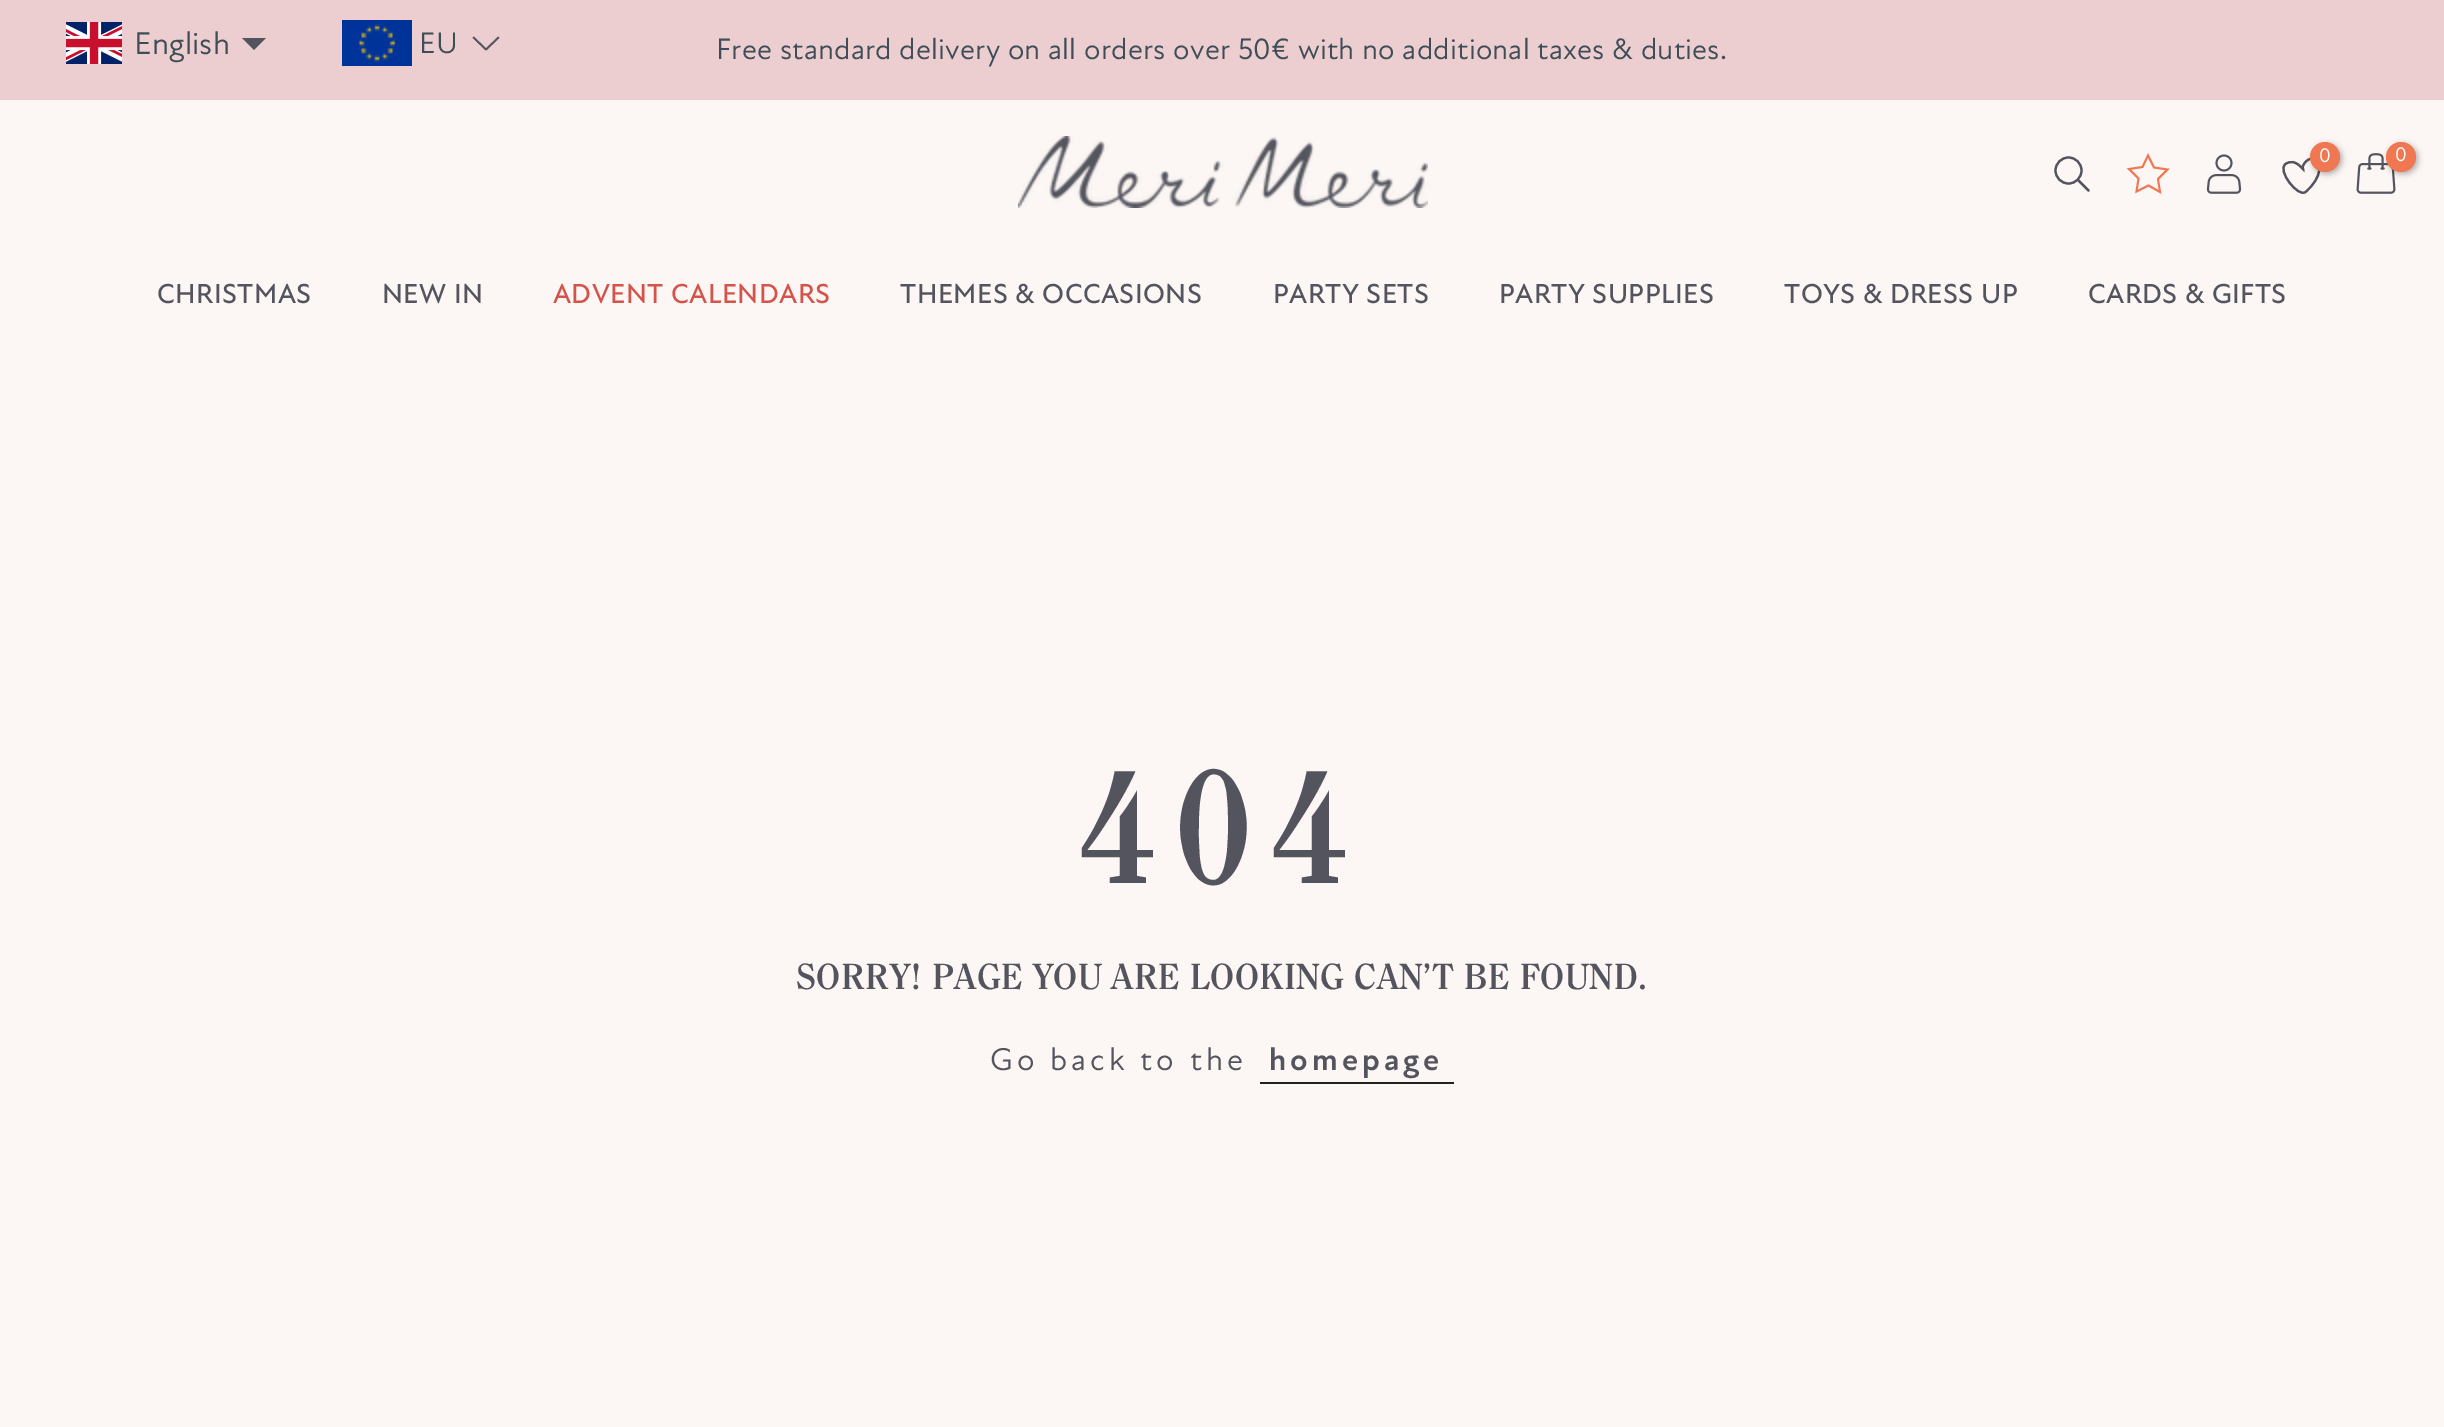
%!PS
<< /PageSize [2444 1427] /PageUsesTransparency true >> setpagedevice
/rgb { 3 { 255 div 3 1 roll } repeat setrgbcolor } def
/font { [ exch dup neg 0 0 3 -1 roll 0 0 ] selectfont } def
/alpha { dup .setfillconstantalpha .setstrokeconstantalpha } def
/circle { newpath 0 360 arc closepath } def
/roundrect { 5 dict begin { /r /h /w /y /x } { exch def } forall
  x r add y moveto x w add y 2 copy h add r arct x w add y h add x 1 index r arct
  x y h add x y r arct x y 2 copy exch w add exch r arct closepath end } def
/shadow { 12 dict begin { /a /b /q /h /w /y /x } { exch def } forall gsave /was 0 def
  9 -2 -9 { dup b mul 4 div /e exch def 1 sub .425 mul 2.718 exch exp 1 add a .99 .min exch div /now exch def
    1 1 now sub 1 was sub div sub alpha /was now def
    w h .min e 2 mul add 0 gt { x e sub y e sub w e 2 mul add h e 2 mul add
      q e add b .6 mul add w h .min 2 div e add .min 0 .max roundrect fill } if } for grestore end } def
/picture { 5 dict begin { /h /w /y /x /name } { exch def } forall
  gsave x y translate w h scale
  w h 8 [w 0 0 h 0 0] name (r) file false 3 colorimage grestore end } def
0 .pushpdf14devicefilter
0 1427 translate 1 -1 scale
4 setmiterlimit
252 247 244 rgb
0 0 2444 1427 rectfill
236 206 209 rgb
0 0 2444 100 rectfill
(img/1.rgb) 66 22 56 42 picture
84 84 94 rgb
242 38 moveto 266 38 lineto 254 50 lineto closepath fill
(img/2.rgb) 342 20 70 46 picture
1.8 setlinewidth
1 setlinecap
1 setlinejoin
473.5 37.5 moveto 486 49.5 lineto 498.5 37.5 lineto stroke
(img/3.rgb) 1018 136 410 72 picture
2.2 setlinewidth
0 setlinecap
0 setlinejoin
2068.5 170.5 13 circle stroke
1 setlinecap
2088.5 190.5 moveto 2078.5 180.5 lineto stroke
239 120 83 rgb
1.9 setlinewidth
0 setlinecap
2142.5 167 moveto 2148 155.5 lineto 2154 167.5 lineto 2167.5 169.5 lineto 2158 179 lineto 2160 192 lineto 2148.5 185.5 lineto 2136.5 191.5 lineto 2138.5 178.5 lineto 2129 169 lineto closepath stroke
(img/4.rgb) 2206 154 36 40 picture
84 84 94 rgb
2.2 setlinewidth
2314.5 159 moveto 2321 161.5 2323.5 176.5 2305.5 192 curveto 2298.5 198 2276.5 170.5 2285.5 164 curveto 2296 156.5 2304.5 172.5 2303 168.5 curveto 2301.5 165.5 2308 156.5 2314.5 159 curveto closepath stroke
0 0 0 rgb
2312 144 30 30 15 3 0.3 shadow
239 120 83 rgb
2325 157 15 circle fill
(img/5.rgb) 2356 153 40 41 picture
0 0 0 rgb
2388 144 30 30 15 3 0.3 shadow
239 120 83 rgb
2401 157 15 circle fill
34 34 34 rgb
1260 1082 194 2 rectfill
/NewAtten-Regular 32 font
63 77 87 rgb
134 54 moveto 0.2 0 (English) ashow
/NewAtten-Regular 30 font
419 53 moveto 0.2 0 (EU) ashow
716 59 moveto 0.2 0 (Free standard delivery on all orders over 50€ with no additional taxes & duties.) ashow
/NewAtten-Regular 20 font
255 255 255 rgb
2319 162 moveto (0) show
2395 161 moveto (0) show
/NewAtten-Medium 28 font
84 84 94 rgb
157 303 moveto 0.4 0 (CHRISTMAS) ashow
382 303 moveto 0.4 0 (NEW IN) ashow
212 83 75 rgb
553 303 moveto 0.4 0 (ADVENT CALENDARS) ashow
84 84 94 rgb
900 303 moveto 0.4 0 (THEMES & OCCASIONS) ashow
1273 303 moveto 0.4 0 (PARTY SETS) ashow
1499 303 moveto 0.4 0 (PARTY SUPPLIES) ashow
1784 303 moveto 0.4 0 (TOYS & DRESS UP) ashow
2088 303 moveto 0.4 0 (CARDS & GIFTS) ashow
/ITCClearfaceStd-Bold 160 font
1078 883 moveto 16 0 (404) ashow
/ITCClearfaceStd-Bold 36 font
796 989 moveto 0.4 0 (SORRY! PAGE YOU ARE LOOKING CAN’T BE FOUND.) ashow
/NewAtten-Regular 32 font
990 1070 moveto 4 0 (Go back to the) ashow
/NewAtten-Bold 32 font
1269 1070 moveto 4 0 (homepage) ashow
.poppdf14devicefilter showpage
